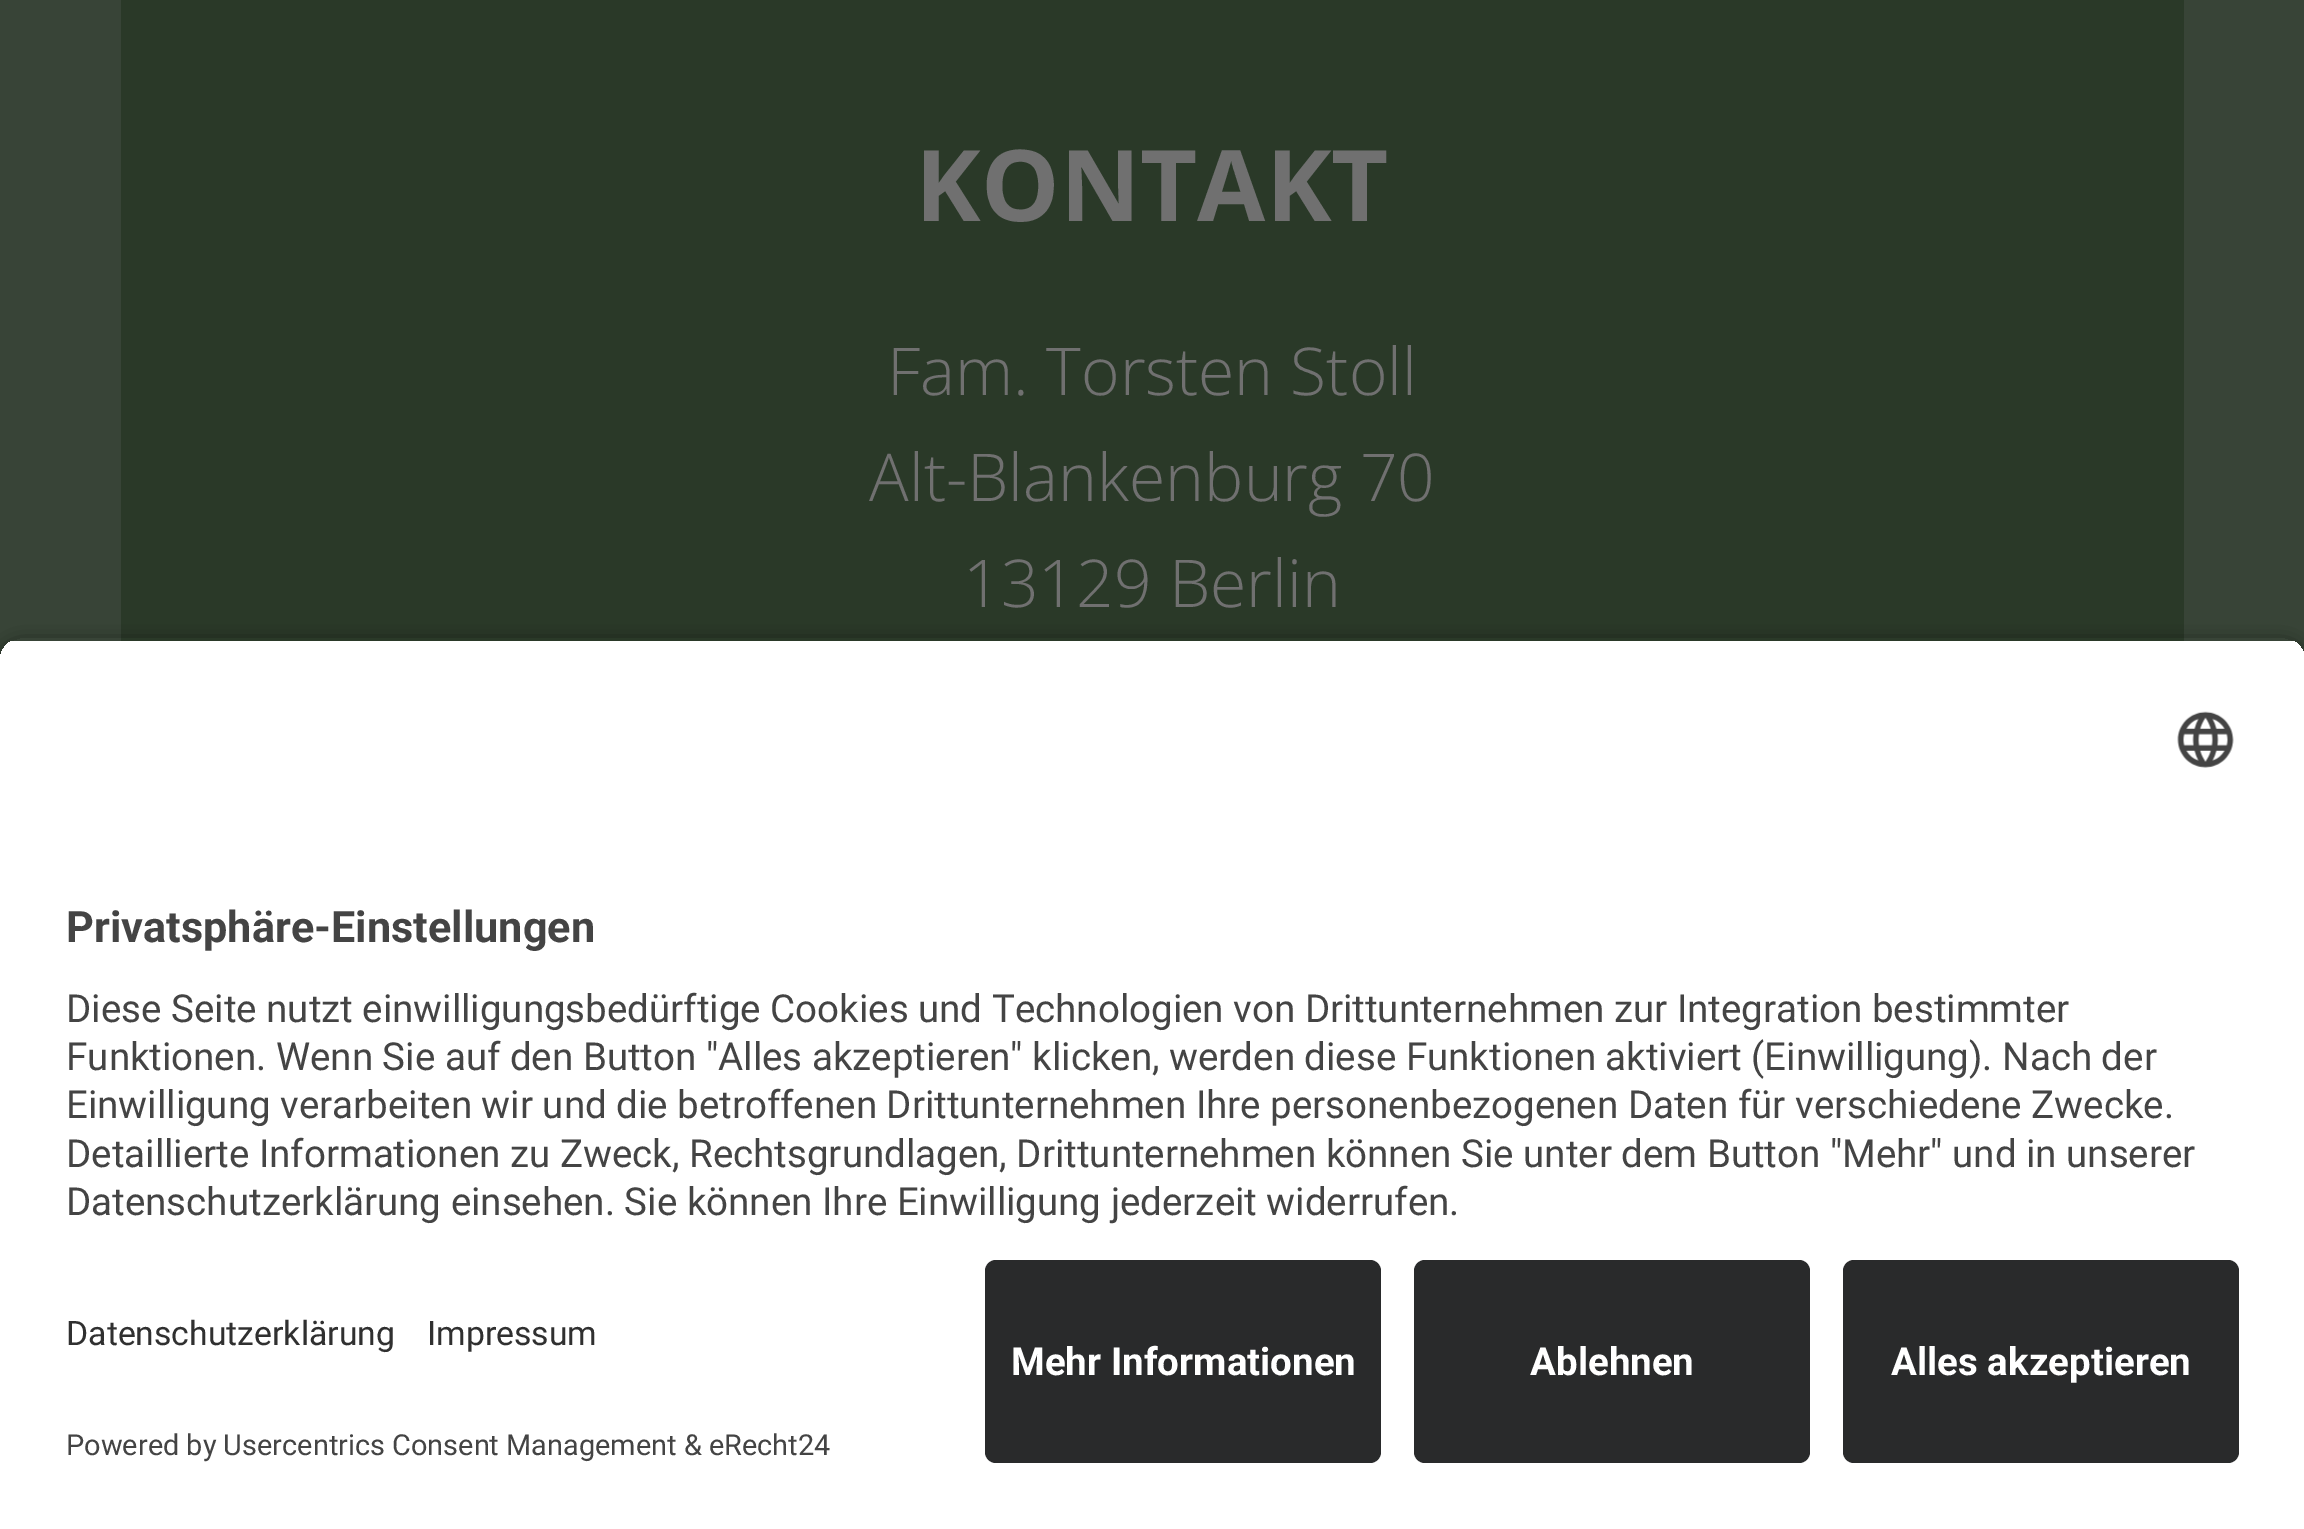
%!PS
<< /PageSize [2304 1529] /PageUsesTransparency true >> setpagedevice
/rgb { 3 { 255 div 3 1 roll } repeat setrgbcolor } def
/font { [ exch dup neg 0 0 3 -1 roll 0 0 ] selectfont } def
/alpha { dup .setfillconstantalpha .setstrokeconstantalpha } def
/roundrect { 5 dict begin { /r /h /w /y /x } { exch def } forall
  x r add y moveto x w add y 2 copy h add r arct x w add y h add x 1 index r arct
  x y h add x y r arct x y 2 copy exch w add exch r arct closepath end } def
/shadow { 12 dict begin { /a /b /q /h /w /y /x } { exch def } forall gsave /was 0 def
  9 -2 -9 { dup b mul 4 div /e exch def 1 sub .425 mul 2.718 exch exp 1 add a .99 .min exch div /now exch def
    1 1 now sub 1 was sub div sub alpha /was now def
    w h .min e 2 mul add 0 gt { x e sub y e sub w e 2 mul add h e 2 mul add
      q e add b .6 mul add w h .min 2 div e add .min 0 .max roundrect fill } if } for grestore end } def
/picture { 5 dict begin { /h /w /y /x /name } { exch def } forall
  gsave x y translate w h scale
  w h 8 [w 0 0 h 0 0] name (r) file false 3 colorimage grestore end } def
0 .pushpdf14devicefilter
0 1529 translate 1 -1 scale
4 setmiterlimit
56 68 55 rgb
0 0 2304 1529 rectfill
42 57 40 rgb
121 0 2063 641 rectfill
gsave
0 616 moveto 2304 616 lineto 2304 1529 lineto 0 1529 lineto closepath 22 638 moveto 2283 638 lineto 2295 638 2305 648 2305 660 curveto 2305 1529 lineto 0 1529 lineto 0 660 lineto 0 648 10 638 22 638 curveto closepath eoclip newpath
0 0 0 rgb
0 646 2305 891 22 9.5 0.8 shadow
grestore
gsave
22 638 moveto 2283 638 lineto 2295 638 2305 648 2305 660 curveto 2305 1238 lineto 0 1238 lineto 0 660 lineto 0 648 10 638 22 638 curveto closepath clip newpath
255 255 255 rgb
0 641 2304 597 rectfill
grestore
(img/1.rgb) 2177 711 57 57 picture
255 255 255 rgb
0 1238 2304 291 rectfill
41 42 43 rgb
985 1260 396 203 11 roundrect fill
1414 1260 396 203 11 roundrect fill
1843 1260 396 203 11 roundrect fill
/OpenSans-Bold 99 font
112 112 112 rgb
915 221 moveto (KONTAKT) show
/OpenSans-Light 66 font
[
  [(Fam. Torsten Stoll) 887 395]
  [(Alt-Blankenburg 70) 869 501]
  [(13129 Berlin) 963 607]
] { aload pop moveto show } forall
/Roboto-Bold 43.25 font
68 68 68 rgb
66 942 moveto (Privatsphäre-Einstellungen) show
/Roboto-Regular 38.5 font
[
  [(Diese Seite nutzt einwilligungsbedürftige Cookies und Technologien von Drittunternehmen zur Integration bestimmter) 66 1022]
  [(Funktionen. Wenn Sie auf den Button "Alles akzeptieren" klicken, werden diese Funktionen aktiviert \(Einwilligung\). Nach der) 66 1070]
  [(Einwilligung verarbeiten wir und die betroffenen Drittunternehmen Ihre personenbezogenen Daten für verschiedene Zwecke.) 66 1118]
  [(Detaillierte Informationen zu Zweck, Rechtsgrundlagen, Drittunternehmen können Sie unter dem Button "Mehr" und in unserer) 66 1167]
  [(Datenschutzerklärung einsehen. Sie können Ihre Einwilligung jederzeit widerrufen.) 66 1215]
] { aload pop moveto show } forall
/Roboto-Regular 33.75 font
48 48 48 rgb
66 1345 moveto (Datenschutzerklärung) show
427 1345 moveto (Impressum) show
/Roboto-Regular 28.9 font
68 68 68 rgb
66 1455 moveto (Powered by Usercentrics Consent Management & eRecht24) show
/Roboto-Bold 38.5 font
255 255 255 rgb
[
  [(Mehr Informationen) 1011 1375]
  [(Ablehnen) 1530 1375]
  [(Alles akzeptieren) 1891 1375]
] { aload pop moveto show } forall
.poppdf14devicefilter showpage
